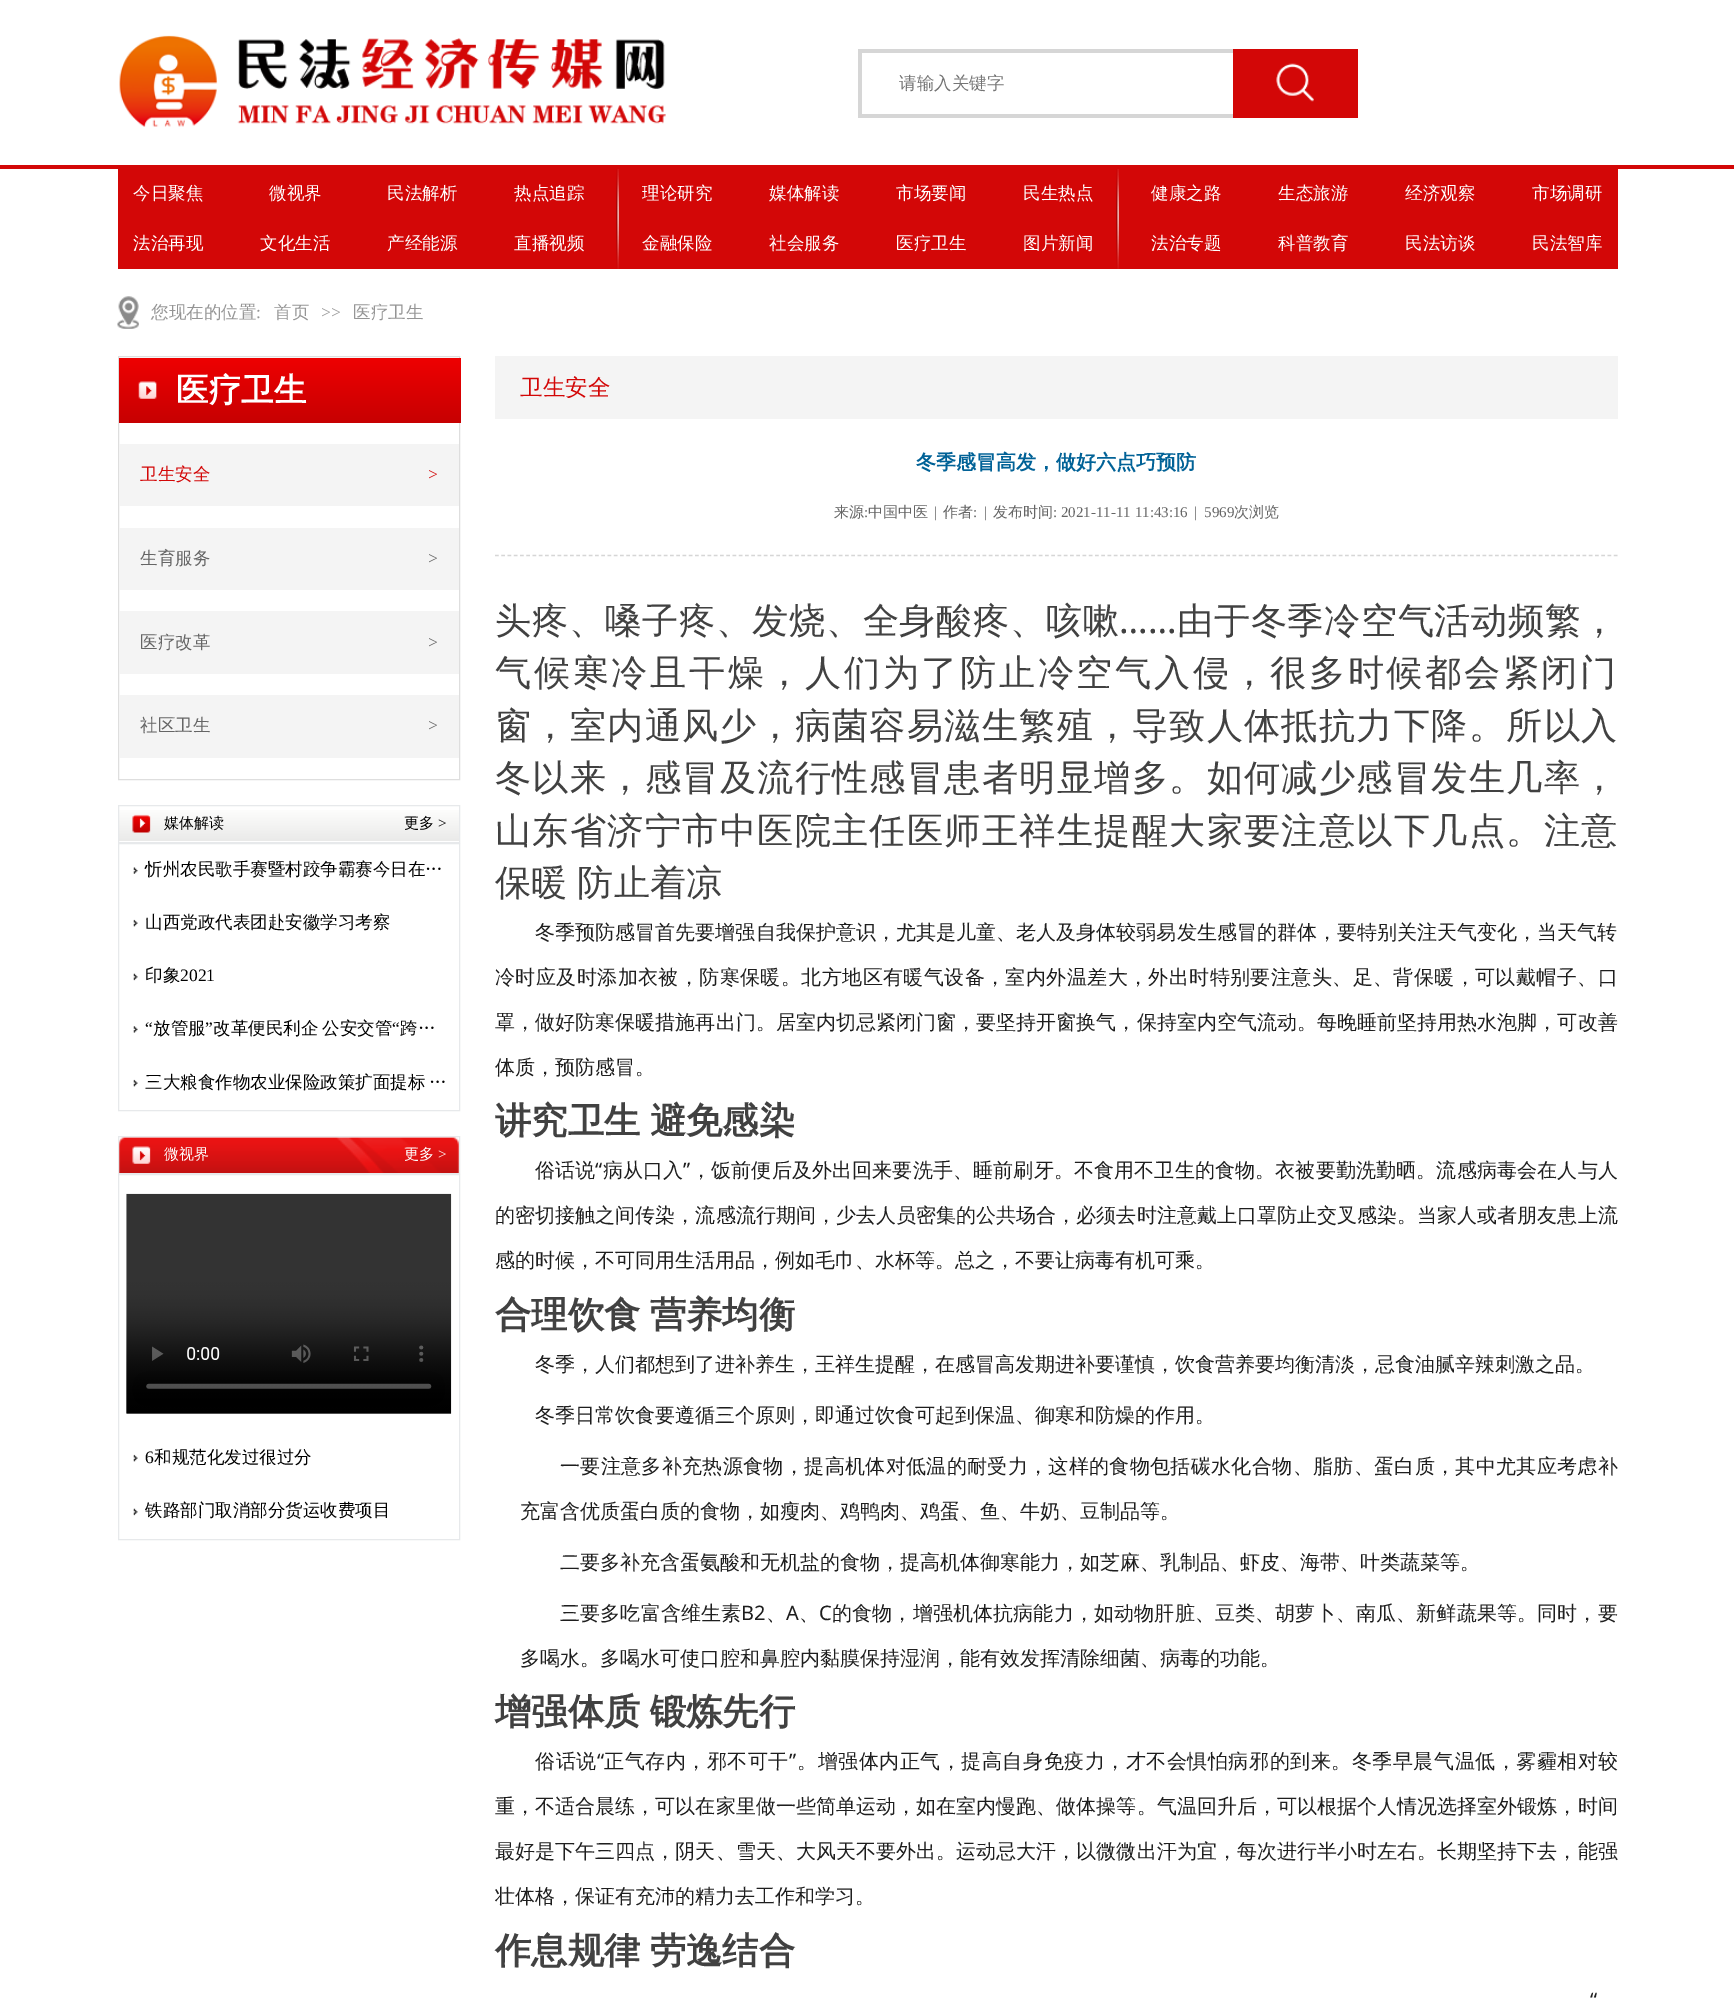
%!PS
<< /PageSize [1734 2001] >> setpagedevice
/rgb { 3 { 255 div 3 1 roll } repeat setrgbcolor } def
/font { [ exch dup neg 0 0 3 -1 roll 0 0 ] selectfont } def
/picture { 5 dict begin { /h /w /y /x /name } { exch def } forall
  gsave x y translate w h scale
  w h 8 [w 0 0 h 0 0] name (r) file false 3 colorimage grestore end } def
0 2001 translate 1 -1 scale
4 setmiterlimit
255 255 255 rgb
0 0 1734 2001 rectfill
211 7 7 rgb
0 165 1734 4 rectfill
(img/1.rgb) 119 35 547 92 picture
[
  [858 49 375 4 214 214 214]
  [858 114 375 4 214 214 214]
  [858 49 4 69 214 214 214]
  [1233 49 125 69 211 7 7]
] { aload pop rgb rectfill } forall
(img/2.rgb) 1276 63 38 39 picture
118 169 1500 100 rectfill
(img/3.rgb) 616 169 3 100 picture
(img/3.rgb) 1116 169 3 100 picture
(img/4.rgb) 117 296 22 33 picture
222 222 222 rgb
118.5 356.5 341 423 rectstroke
gsave 119 358 moveto 461 358 lineto 461 423 lineto 119 423 lineto closepath clip newpath
<< /ShadingType 2 /ColorSpace /DeviceRGB /Coords [290 358 290 423] /Extend [true true] /Function << /FunctionType 2 /Domain [0 1] /C0 [0.933 0 0.008] /C1 [0.78 0 0.004] /N 1 >> >> shfill grestore
(img/5.rgb) 138 381 19 18 picture
[
  [119 444 340 62 244 244 244]
  [119 528 340 62 244 244 244]
  [119 611 340 63 244 244 244]
  [119 695 340 63 244 244 244]
] { aload pop rgb rectfill } forall
gsave 119 810 moveto 459 810 lineto 459 841 lineto 119 841 lineto closepath clip newpath
<< /ShadingType 2 /ColorSpace /DeviceRGB /Coords [289 806 289 841] /Extend [true true] /Function << /FunctionType 2 /Domain [0 1] /C0 [1 1 1] /C1 [0.918 0.918 0.914] /N 1 >> >> shfill grestore
231 233 235 rgb
118.5 805.5 341 37 rectstroke
(img/6.rgb) 132 814 19 19 picture
118.5 843.5 341 267 rectstroke
(img/7.rgb) 133 867 5 7 picture
(img/8.rgb) 133 919 5 8 picture
(img/9.rgb) 133 973 5 8 picture
(img/10.rgb) 133 1026 5 7 picture
(img/8.rgb) 133 1079 5 8 picture
(img/11.rgb) 119 1137 340 36 picture
118.5 1136.5 341 37 rectstroke
(img/12.rgb) 132 1146 19 18 picture
118.5 1174.5 341 365 rectstroke
(img/13.rgb) 126 1193 326 221 picture
(img/8.rgb) 133 1454 5 8 picture
(img/9.rgb) 133 1508 5 8 picture
244 244 244 rgb
495 356 1123 63 rectfill
214 214 214 rgb
1.2 setlinewidth
[3.75 2.5] 0 setdash
495 555.5 moveto 1617.5 555.5 lineto stroke
/WenQuanYiZenHei-Medium 17.5 font
117 117 117 rgb
899 89 moveto (请输入关键字) show
255 255 255 rgb
[
  [(今日聚焦) 133 199]
  [(微视界) 269 199]
  [(民法解析) 387 199]
  [(热点追踪) 514 199]
  [(理论研究) 642 199]
  [(媒体解读) 769 199]
  [(市场要闻) 896 199]
  [(民生热点) 1023 199]
  [(健康之路) 1151 199]
  [(生态旅游) 1278 199]
  [(经济观察) 1405 199]
  [(市场调研) 1532 199]
  [(法治再现) 133 249]
  [(文化生活) 260 249]
  [(产经能源) 387 249]
  [(直播视频) 514 249]
  [(金融保险) 642 249]
  [(社会服务) 769 249]
  [(医疗卫生) 896 249]
  [(图片新闻) 1023 249]
  [(法治专题) 1151 249]
  [(科普教育) 1278 249]
  [(民法访谈) 1405 249]
  [(民法智库) 1532 249]
] { aload pop moveto show } forall
149 149 149 rgb
151 318 moveto (您现在的位置) show
/LiberationSerif-Regular 17.5 font
256 318 moveto (:) show
/WenQuanYiZenHei-Medium 17.5 font
274 318 moveto (首页) show
/LiberationSerif-Regular 17.5 font
321 318 moveto (>>) show
/WenQuanYiZenHei-Medium 17.5 font
353 318 moveto (医疗卫生) show
/WenQuanYiZenHei-Bold 32.5 font
255 255 255 rgb
176 401 moveto (医疗卫生) show
/WenQuanYiZenHei-Medium 17.5 font
211 7 7 rgb
140 480 moveto (卫生安全) show
/LiberationSerif-Regular 17.5 font
428 480 moveto (>) show
/WenQuanYiZenHei-Medium 17.5 font
101 101 101 rgb
140 564 moveto (生育服务) show
/LiberationSerif-Regular 17.5 font
428 564 moveto (>) show
/WenQuanYiZenHei-Medium 17.5 font
140 648 moveto (医疗改革) show
/LiberationSerif-Regular 17.5 font
428 648 moveto (>) show
/WenQuanYiZenHei-Medium 17.5 font
140 731 moveto (社区卫生) show
/LiberationSerif-Regular 17.5 font
428 731 moveto (>) show
/WenQuanYiZenHei-Medium 15 font
0 0 0 rgb
164 828 moveto (媒体解读) show
404 828 moveto (更多) show
/LiberationSerif-Regular 15 font
438 828 moveto (>) show
/WenQuanYiZenHei-Medium 17.5 font
[
  [(忻州农民歌手赛暨村跤争霸赛今日在…) 145 875]
  [(山西党政代表团赴安徽学习考察) 145 928]
  [(印象) 145 981]
] { aload pop moveto show } forall
/LiberationSerif-Regular 17.5 font
180 981 moveto (2021) show
145 1034 moveto (“) show
/WenQuanYiZenHei-Medium 17.5 font
153 1034 moveto (放管服) show
/LiberationSerif-Regular 17.5 font
205 1034 moveto (”) show
/WenQuanYiZenHei-Medium 17.5 font
213 1034 moveto -1 0 32 (改革便民利企 公安交管) widthshow
/LiberationSerif-Regular 17.5 font
392 1034 moveto (“) show
/WenQuanYiZenHei-Medium 17.5 font
400 1034 moveto (跨…) show
145 1088 moveto -1 0 32 (三大粮食作物农业保险政策扩面提标 …) widthshow
/WenQuanYiZenHei-Medium 15 font
255 255 255 rgb
164 1159 moveto (微视界) show
404 1159 moveto (更多) show
/LiberationSerif-Regular 15 font
438 1159 moveto (>) show
/LiberationSerif-Regular 17.5 font
0 0 0 rgb
145 1463 moveto (6) show
/WenQuanYiZenHei-Medium 17.5 font
154 1463 moveto (和规范化发过很过分) show
145 1516 moveto (铁路部门取消部分货运收费项目) show
/WenQuanYiZenHei-Medium 22.5 font
211 7 7 rgb
520 395 moveto (卫生安全) show
/WenQuanYiZenHei-Bold 20 font
1 98 151 rgb
916 469 moveto (冬季感冒高发，做好六点巧预防) show
/WenQuanYiZenHei-Medium 15 font
101 101 101 rgb
834 517 moveto (来源) show
/LiberationSerif-Regular 15 font
864 517 moveto (:) show
/WenQuanYiZenHei-Medium 15 font
868 517 moveto (中国中医) show
/LiberationSerif-Regular 15 font
934 517 moveto (|) show
/WenQuanYiZenHei-Medium 15 font
943 517 moveto (作者) show
/LiberationSerif-Regular 15 font
973 517 moveto (:) show
984 517 moveto (|) show
/WenQuanYiZenHei-Medium 15 font
993 517 moveto (发布时间) show
/LiberationSerif-Regular 15 font
[
  [(: 2021-11-11 11:43:16) 1053 517]
  [(|) 1194 517]
  [(5969) 1204 517]
] { aload pop moveto show } forall
/WenQuanYiZenHei-Medium 15 font
1234 517 moveto (次浏览) show
/WenQuanYiZenHei-Medium 36.25 font
65 65 65 rgb
495 633 moveto 0.5 0 (头疼、嗓子疼、发烧、全身酸疼、咳嗽) ashow
/NotoSans-Regular 36.25 font
1119 633 moveto 0.5 0 (……) ashow
/WenQuanYiZenHei-Medium 36.25 font
1177 633 moveto 0.5 0 (由于冬季冷空气活动频繁，) ashow
495 685 moveto 2.5 0 (气候寒冷且干燥，人们为了防止冷空气入侵，很多时候都会紧闭门) ashow
495 738 moveto 1.2 0 (窗，室内通风少，病菌容易滋生繁殖，导致人体抵抗力下降。所以入) ashow
495 790 moveto 1.2 0 (冬以来，感冒及流行性感冒患者明显增多。如何减少感冒发生几率，) ashow
495 843 moveto 1.2 0 (山东省济宁市中医院主任医师王祥生提醒大家要注意以下几点。注意) ashow
495 895 moveto -1 0 32 (保暖 防止着凉) widthshow
/WenQuanYiZenHei-Medium 20 font
30 30 30 rgb
535 939 moveto 0.05 0 (冬季预防感冒首先要增强自我保护意识，尤其是儿童、老人及身体较弱易发生感冒的群体，要特别关注天气变化，当天气转) ashow
495 984 moveto 0.42 0 (冷时应及时添加衣被，防寒保暖。北方地区有暖气设备，室内外温差大，外出时特别要注意头、足、背保暖，可以戴帽子、口) ashow
495 1029 moveto 0.05 0 (罩，做好防寒保暖措施再出门。居室内切忌紧闭门窗，要坚持开窗换气，保持室内空气流动。每晚睡前坚持用热水泡脚，可改善) ashow
495 1074 moveto (体质，预防感冒。) show
/WenQuanYiZenHei-Bold 36.25 font
65 65 65 rgb
495 1133 moveto -1 0 32 (讲究卫生 避免感染) widthshow
/WenQuanYiZenHei-Medium 20 font
30 30 30 rgb
535 1177 moveto 0.15 0 (俗话说) ashow
/NotoSans-Regular 20 font
595 1177 moveto 0.15 0 (“) ashow
/WenQuanYiZenHei-Medium 20 font
603 1177 moveto 0.15 0 (病从口入) ashow
/NotoSans-Regular 20 font
683 1177 moveto 0.15 0 (”) ashow
/WenQuanYiZenHei-Medium 20 font
691 1177 moveto 0.15 0 (，饭前便后及外出回来要洗手、睡前刷牙。不食用不卫生的食物。衣被要勤洗勤晒。流感病毒会在人与人) ashow
495 1222 moveto 0.05 0 (的密切接触之间传染，流感流行期间，少去人员密集的公共场合，必须去时注意戴上口罩防止交叉感染。当家人或者朋友患上流) ashow
495 1267 moveto (感的时候，不可同用生活用品，例如毛巾、水杯等。总之，不要让病毒有机可乘。) show
/WenQuanYiZenHei-Bold 36.25 font
65 65 65 rgb
495 1327 moveto -1 0 32 (合理饮食 营养均衡) widthshow
/WenQuanYiZenHei-Medium 20 font
30 30 30 rgb
535 1371 moveto (冬季，人们都想到了进补养生，王祥生提醒，在感冒高发期进补要谨慎，饮食营养要均衡清淡，忌食油腻辛辣刺激之品。) show
535 1422 moveto (冬季日常饮食要遵循三个原则，即通过饮食可起到保温、御寒和防燥的作用。) show
560 1473 moveto 0.35 0 (一要注意多补充热源食物，提高机体对低温的耐受力，这样的食物包括碳水化合物、脂肪、蛋白质，其中尤其应考虑补) ashow
520 1518 moveto (充富含优质蛋白质的食物，如瘦肉、鸡鸭肉、鸡蛋、鱼、牛奶、豆制品等。) show
560 1569 moveto (二要多补充含蛋氨酸和无机盐的食物，提高机体御寒能力，如芝麻、乳制品、虾皮、海带、叶类蔬菜等。) show
560 1620 moveto 0.15 0 (三要多吃富含维生素) ashow
/NotoSans-Regular 20 font
741 1620 moveto 0.15 0 (B2) ashow
/WenQuanYiZenHei-Medium 20 font
766 1620 moveto 0.15 0 (、) ashow
/NotoSans-Regular 20 font
786 1620 moveto 0.15 0 (A) ashow
/WenQuanYiZenHei-Medium 20 font
799 1620 moveto 0.15 0 (、) ashow
/NotoSans-Regular 20 font
819 1620 moveto 0.15 0 (C) ashow
/WenQuanYiZenHei-Medium 20 font
832 1620 moveto 0.15 0 (的食物，增强机体抗病能力，如动物肝脏、豆类、胡萝卜、南瓜、新鲜蔬果等。同时，要) ashow
520 1665 moveto (多喝水。多喝水可使口腔和鼻腔内黏膜保持湿润，能有效发挥清除细菌、病毒的功能。) show
/WenQuanYiZenHei-Bold 36.25 font
65 65 65 rgb
495 1724 moveto -1 0 32 (增强体质 锻炼先行) widthshow
/WenQuanYiZenHei-Medium 20 font
30 30 30 rgb
535 1768 moveto 0.55 0 (俗话说) ashow
/NotoSans-Regular 20 font
597 1768 moveto 0.55 0 (“) ashow
/WenQuanYiZenHei-Medium 20 font
604 1768 moveto 0.55 0 (正气存内，邪不可干) ashow
/NotoSans-Regular 20 font
789 1768 moveto 0.55 0 (”) ashow
/WenQuanYiZenHei-Medium 20 font
797 1768 moveto 0.55 0 (。增强体内正气，提高自身免疫力，才不会惧怕病邪的到来。冬季早晨气温低，雾霾相对较) ashow
495 1813 moveto 0.05 0 (重，不适合晨练，可以在家里做一些简单运动，如在室内慢跑、做体操等。气温回升后，可以根据个人情况选择室外锻炼，时间) ashow
495 1858 moveto 0.05 0 (最好是下午三四点，阴天、雪天、大风天不要外出。运动忌大汗，以微微出汗为宜，每次进行半小时左右。长期坚持下去，能强) ashow
495 1903 moveto (壮体格，保证有充沛的精力去工作和学习。) show
/WenQuanYiZenHei-Bold 36.25 font
65 65 65 rgb
495 1963 moveto -1 0 32 (作息规律 劳逸结合) widthshow
/NotoSans-Regular 20 font
30 30 30 rgb
1590 2007 moveto 1 0 (“) ashow
showpage
